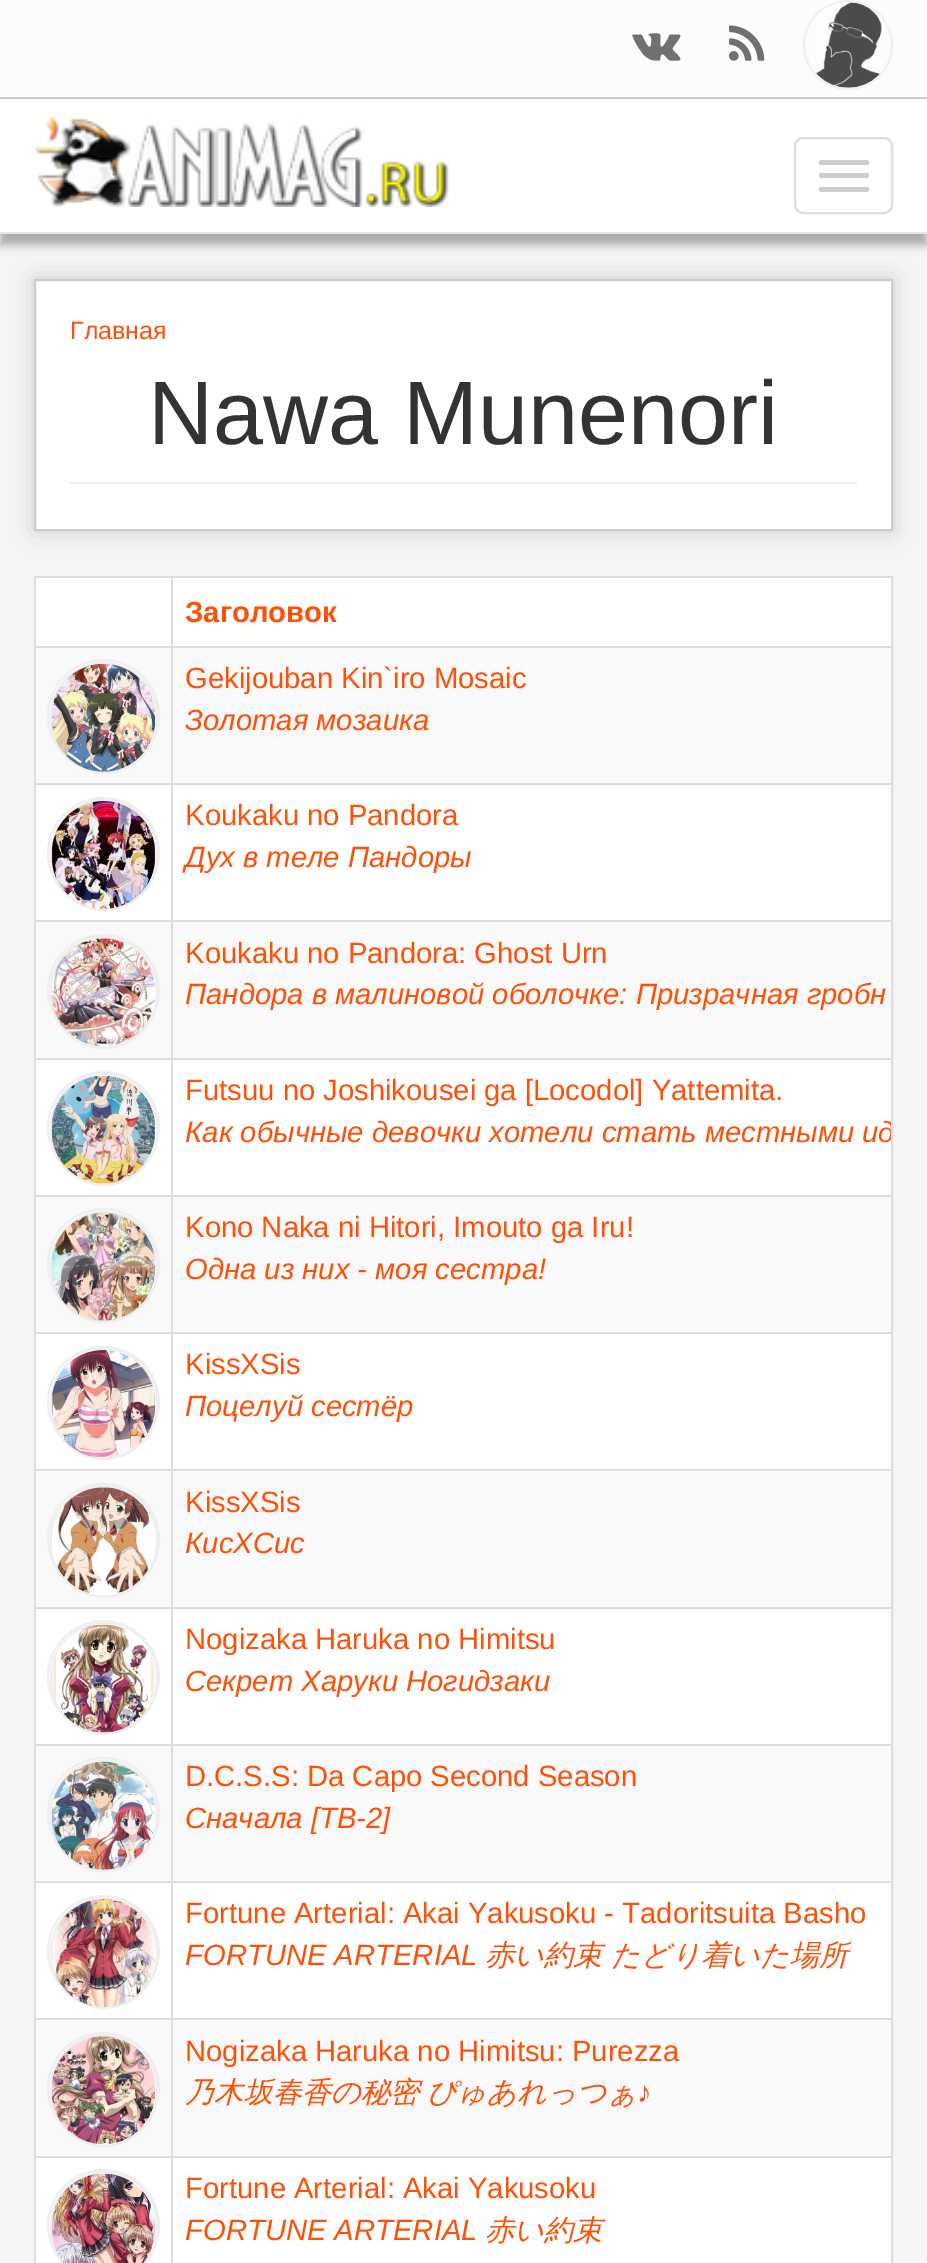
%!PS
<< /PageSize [927 2263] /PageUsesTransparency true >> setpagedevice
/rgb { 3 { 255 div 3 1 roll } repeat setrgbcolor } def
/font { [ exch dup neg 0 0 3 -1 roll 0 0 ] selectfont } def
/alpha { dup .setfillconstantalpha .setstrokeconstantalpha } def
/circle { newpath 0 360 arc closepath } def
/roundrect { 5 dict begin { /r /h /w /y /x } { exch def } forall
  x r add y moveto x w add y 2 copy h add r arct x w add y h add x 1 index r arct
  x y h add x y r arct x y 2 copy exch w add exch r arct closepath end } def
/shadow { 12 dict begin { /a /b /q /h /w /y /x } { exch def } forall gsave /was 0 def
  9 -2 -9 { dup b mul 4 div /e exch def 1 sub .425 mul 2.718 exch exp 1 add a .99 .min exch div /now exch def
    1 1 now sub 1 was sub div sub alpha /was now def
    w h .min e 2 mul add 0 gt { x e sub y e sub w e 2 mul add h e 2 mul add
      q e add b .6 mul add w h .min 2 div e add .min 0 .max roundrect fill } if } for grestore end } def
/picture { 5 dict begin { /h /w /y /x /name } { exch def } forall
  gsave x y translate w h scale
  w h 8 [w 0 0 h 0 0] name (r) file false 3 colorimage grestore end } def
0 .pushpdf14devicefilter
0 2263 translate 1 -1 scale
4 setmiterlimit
245 245 245 rgb
0 0 927 2263 rectfill
252 252 252 rgb
0 0 927 97 rectfill
(img/1.rgb) 632 33 49 28 picture
(img/2.rgb) 729 25 36 36 picture
240 240 240 rgb
2 setlinewidth
848 45 44 circle stroke
(img/3.rgb) 816 2 66 86 picture
170 170 170 rgb
0 108 927 137 0 4.5 1 shadow
[
  [0 99 927 133 255 255 254]
  [0 97 927 2 204 204 204]
  [0 232 927 2 231 231 231]
] { aload pop rgb rectfill } forall
(img/4.rgb) 35 117 414 90 picture
221 221 221 rgb
795 138 97 75 8 roundrect stroke
204 204 204 rgb
819 160 50 5 2.5 roundrect fill
819 173 50 5 2.5 roundrect fill
819 187 50 5 2.5 roundrect fill
34 279 859 252 0 11 1 shadow
255 255 255 rgb
35 280 moveto 892 280 lineto 892 530 lineto 35 530 lineto closepath gsave fill grestore
204 204 204 rgb
stroke
238 238 238 rgb
70 482 787 2 rectfill
221 221 221 rgb
35 577 857 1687 rectstroke
[
  [36 578 855 1685 255 255 255]
  [171 646 720 2 221 221 221]
  [171 783 720 2 221 221 221]
  [171 920 720 2 221 221 221]
  [171 1058 720 2 221 221 221]
  [171 1195 720 2 221 221 221]
  [171 1332 720 2 221 221 221]
  [171 1469 720 2 221 221 221]
  [171 1607 720 2 221 221 221]
  [171 1744 720 2 221 221 221]
  [171 1881 720 2 221 221 221]
  [171 2018 720 2 221 221 221]
  [171 2156 720 2 221 221 221]
  [171 2156 2 107 221 221 221]
  [36 2156 137 2 221 221 221]
  [171 2018 2 140 221 221 221]
  [36 2018 137 2 221 221 221]
  [171 1881 2 140 221 221 221]
  [36 1881 137 2 221 221 221]
  [171 1744 2 139 221 221 221]
  [36 1744 137 2 221 221 221]
  [171 1607 2 139 221 221 221]
  [36 1607 137 2 221 221 221]
  [171 1469 2 140 221 221 221]
  [36 1469 137 2 221 221 221]
  [171 1332 2 140 221 221 221]
  [36 1332 137 2 221 221 221]
  [171 1195 2 139 221 221 221]
  [36 1195 137 2 221 221 221]
  [171 1058 2 139 221 221 221]
  [36 1058 137 2 221 221 221]
  [171 920 2 140 221 221 221]
  [36 920 137 2 221 221 221]
  [171 783 2 140 221 221 221]
  [36 783 137 2 221 221 221]
  [171 646 2 139 221 221 221]
  [36 646 137 2 221 221 221]
  [171 578 2 70 221 221 221]
  [36 648 135 135 249 249 249]
] { aload pop rgb rectfill } forall
238 238 238 rgb
103.5 715.5 55.5 circle stroke
51 663 106 110 53 roundrect stroke
(img/5.rgb) 51 663 105 109 picture
249 249 249 rgb
173 648 718 135 rectfill
238 238 238 rgb
48 798 111 110 55 roundrect stroke
51 800 106 110 53 roundrect stroke
(img/6.rgb) 51 801 105 108 picture
249 249 249 rgb
36 922 135 136 rectfill
238 238 238 rgb
48 935 111 110 55 roundrect stroke
51 937 106 111 53 roundrect stroke
(img/7.rgb) 52 938 103 108 picture
249 249 249 rgb
173 922 718 136 rectfill
238 238 238 rgb
103.5 1127.5 55.5 circle stroke
51 1074 106 111 53 roundrect stroke
(img/8.rgb) 51 1075 105 109 picture
249 249 249 rgb
36 1197 135 135 rectfill
238 238 238 rgb
103.5 1264.5 55.5 circle stroke
51 1212 106 110 53 roundrect stroke
(img/9.rgb) 52 1213 104 108 picture
249 249 249 rgb
173 1197 718 135 rectfill
238 238 238 rgb
48 1347 111 110 55 roundrect stroke
51 1349 106 110 53 roundrect stroke
(img/10.rgb) 51 1350 105 108 picture
249 249 249 rgb
36 1471 135 136 rectfill
238 238 238 rgb
48 1484 111 110 55 roundrect stroke
51 1486 106 111 53 roundrect stroke
(img/11.rgb) 52 1487 103 108 picture
249 249 249 rgb
173 1471 718 136 rectfill
238 238 238 rgb
103.5 1676.5 55.5 circle stroke
51 1623 106 111 53 roundrect stroke
(img/12.rgb) 52 1624 103 109 picture
249 249 249 rgb
36 1746 135 135 rectfill
238 238 238 rgb
103.5 1813.5 55.5 circle stroke
51 1761 106 110 53 roundrect stroke
(img/13.rgb) 51 1761 104 109 picture
249 249 249 rgb
173 1746 718 135 rectfill
238 238 238 rgb
48 1896 111 110 55 roundrect stroke
51 1898 106 110 53 roundrect stroke
(img/14.rgb) 52 1899 103 108 picture
249 249 249 rgb
36 2020 135 136 rectfill
238 238 238 rgb
48 2033 111 110 55 roundrect stroke
51 2035 106 111 53 roundrect stroke
(img/15.rgb) 51 2036 105 109 picture
249 249 249 rgb
173 2020 718 136 rectfill
238 238 238 rgb
103.5 2225.5 55.5 circle stroke
51 2172 106 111 53 roundrect stroke
(img/16.rgb) 52 2173 103 90 picture
/LiberationSans-Regular 25 font
254 80 7 rgb
70 339 moveto (Главная) show
/LiberationSans-Regular 90 font
51 51 51 rgb
148 444 moveto (Nawa Munenori) show
/LiberationSans-Bold 29.25 font
254 80 7 rgb
185 622 moveto (Заголовок) show
/LiberationSans-Regular 29.25 font
185 688 moveto (Gekijouban Kin`iro Mosaic) show
/LiberationSans-Italic 29.25 font
185 730 moveto (Золотая мозаика) show
/LiberationSans-Regular 29.25 font
185 825 moveto (Koukaku no Pandora) show
/LiberationSans-Italic 29.25 font
185 867 moveto (Дух в теле Пандоры) show
/LiberationSans-Regular 29.25 font
185 963 moveto (Koukaku no Pandora: Ghost Urn) show
/LiberationSans-Italic 29.25 font
185 1004 moveto (Пандора в малиновой оболочке: Призрачная гробн) show
/LiberationSans-Regular 29.25 font
185 1100 moveto (Futsuu no Joshikousei ga [Locodol] Yattemita.) show
gsave
36 578 855 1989 rectclip
/LiberationSans-Italic 29.25 font
185 1142 moveto (Как обычные девочки хотели стать местными ид) show
grestore
185 1237 moveto (Kono Naka ni Hitori, Imouto ga Iru!) show
/LiberationSans-Italic 29.25 font
185 1279 moveto (Одна из них - моя сестра!) show
/LiberationSans-Regular 29.25 font
185 1374 moveto (KissXSis) show
/LiberationSans-Italic 29.25 font
185 1416 moveto (Поцелуй сестёр) show
/LiberationSans-Regular 29.25 font
185 1512 moveto (KissXSis) show
/LiberationSans-Italic 29.25 font
185 1553 moveto (КисХСис) show
/LiberationSans-Regular 29.25 font
185 1649 moveto (Nogizaka Haruka no Himitsu) show
/LiberationSans-Italic 29.25 font
185 1691 moveto (Секрет Харуки Ногидзаки) show
/LiberationSans-Regular 29.25 font
185 1786 moveto (D.C.S.S: Da Capo Second Season) show
/LiberationSans-Italic 29.25 font
185 1828 moveto (Сначала [ТВ-2]) show
/LiberationSans-Regular 29.25 font
185 1923 moveto (Fortune Arterial: Akai Yakusoku - Tadoritsuita Basho) show
/LiberationSans-Italic 29.25 font
185 1965 moveto (FORTUNE ARTERIAL) show
/WenQuanYiZenHei-MediumItalic 29.25 font
485 1965 moveto (赤い約束) show
611 1965 moveto (たどり着いた場所) show
/LiberationSans-Regular 29.25 font
185 2061 moveto (Nogizaka Haruka no Himitsu: Purezza) show
/WenQuanYiZenHei-MediumItalic 29.25 font
185 2102 moveto -1 0 32 (乃木坂春香の秘密 ぴゅあれっつぁ) widthshow
/LiberationSans-Italic 29.25 font
637 2102 moveto (♪) show
/LiberationSans-Regular 29.25 font
185 2198 moveto (Fortune Arterial: Akai Yakusoku) show
/LiberationSans-Italic 29.25 font
185 2240 moveto (FORTUNE ARTERIAL) show
/WenQuanYiZenHei-MediumItalic 29.25 font
485 2240 moveto (赤い約束) show
.poppdf14devicefilter showpage
